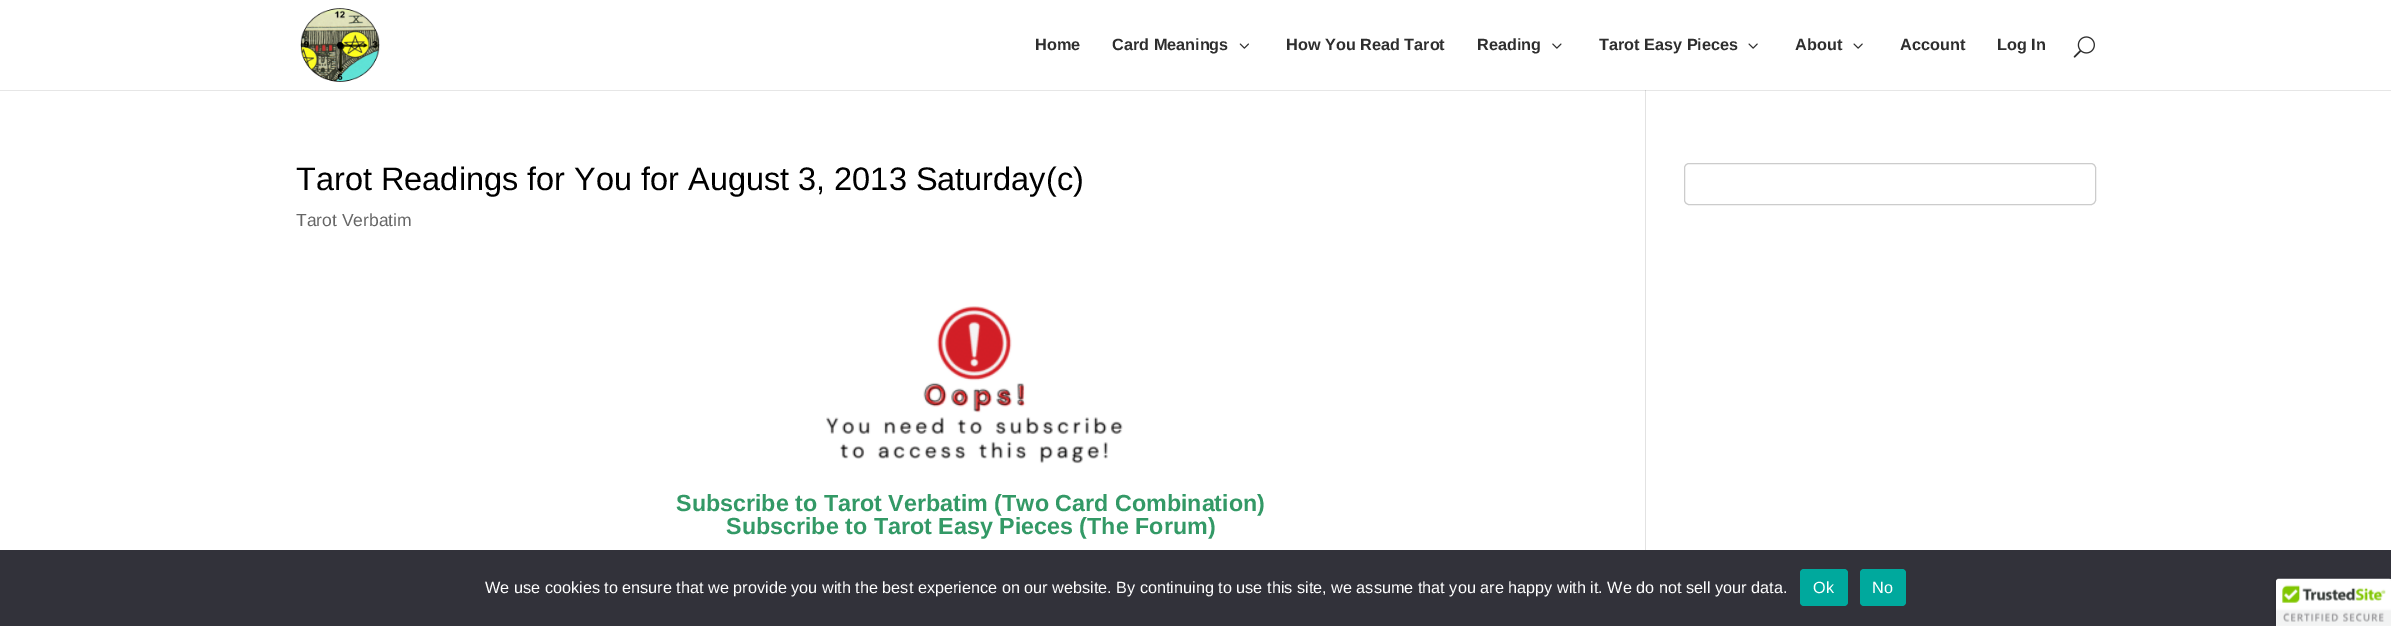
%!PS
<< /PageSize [2391 626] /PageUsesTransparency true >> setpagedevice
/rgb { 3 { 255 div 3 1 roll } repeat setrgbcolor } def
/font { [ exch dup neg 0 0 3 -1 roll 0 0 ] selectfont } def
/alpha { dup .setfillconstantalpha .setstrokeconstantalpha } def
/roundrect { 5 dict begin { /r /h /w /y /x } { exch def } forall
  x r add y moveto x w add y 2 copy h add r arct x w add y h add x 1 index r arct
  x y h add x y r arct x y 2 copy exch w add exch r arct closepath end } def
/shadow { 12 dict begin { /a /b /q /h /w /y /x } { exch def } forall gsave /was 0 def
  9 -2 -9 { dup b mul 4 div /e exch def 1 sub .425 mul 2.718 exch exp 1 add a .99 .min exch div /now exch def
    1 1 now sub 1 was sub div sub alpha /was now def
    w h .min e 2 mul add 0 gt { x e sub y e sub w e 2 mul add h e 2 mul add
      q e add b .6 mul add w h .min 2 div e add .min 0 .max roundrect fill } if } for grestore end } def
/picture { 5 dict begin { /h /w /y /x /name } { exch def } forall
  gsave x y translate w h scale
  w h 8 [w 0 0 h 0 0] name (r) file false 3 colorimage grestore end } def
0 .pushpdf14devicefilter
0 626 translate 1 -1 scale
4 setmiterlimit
255 255 255 rgb
0 0 2391 626 rectfill
230 230 230 rgb
0 90 2391 1 rectfill
(img/1.rgb) 300 8 80 74 picture
(img/2.rgb) 1239 43 10 6 picture
(img/3.rgb) 1552 43 10 6 picture
(img/4.rgb) 1748 43 10 6 picture
(img/4.rgb) 1853 43 10 6 picture
(img/5.rgb) 2073 36 22 22 picture
(img/6.rgb) 826 306 297 158 picture
204 204 204 rgb
1684.5 163.5 411 41 4.5 roundrect stroke
[
  [1645 90 1 460 226 226 226]
  [1645 90 1 1 203 203 203]
  [0 550 2391 76 50 50 58]
] { aload pop rgb rectfill } forall
0 169 157 rgb
1800 569 48 37 4 roundrect fill
1860 569 46 37 4 roundrect fill
0 0 0 rgb
2276 579 115 47 2.5 3 0.2 shadow
255 255 255 rgb
2278.5 579 moveto 2391 579 lineto 2391 626 lineto 2276 626 lineto 2276 581.5 lineto 2276 580 2277 579 2278.5 579 curveto closepath fill
(img/7.rgb) 2276 578 115 48 picture
/LiberationSans-Bold 16.25 font
46 46 46 rgb
[
  [(Home) 1035 50]
  [(Card Meanings) 1112 50]
  [(How You Read Tarot) 1286 50]
  [(Reading) 1477 50]
  [(Tarot Easy Pieces) 1599 50]
  [(About) 1795 50]
  [(Account) 1900 50]
  [(Log In) 1997 50]
] { aload pop moveto show } forall
/LiberationSans-Regular 32.5 font
0 0 0 rgb
296 190 moveto (Tarot Readings for You for August 3, 2013 Saturday\(c\)) show
/LiberationSans-Regular 17.5 font
102 102 102 rgb
296 226 moveto (Tarot Verbatim) show
/LiberationSans-Bold 23.3 font
51 153 102 rgb
676 511 moveto (Subscribe to Tarot Verbatim \(Two Card Combination\)) show
726 534 moveto (Subscribe to Tarot Easy Pieces \(The Forum\)) show
/LiberationSans-Regular 16.25 font
255 255 255 rgb
[
  [(We use cookies to ensure that we provide you with the best experience on our website. By continuing to use this site, we assume that you are happy with it. We do not sell your data.) 485 593]
  [(Ok) 1813 593]
  [(No) 1872 593]
] { aload pop moveto show } forall
.poppdf14devicefilter showpage
